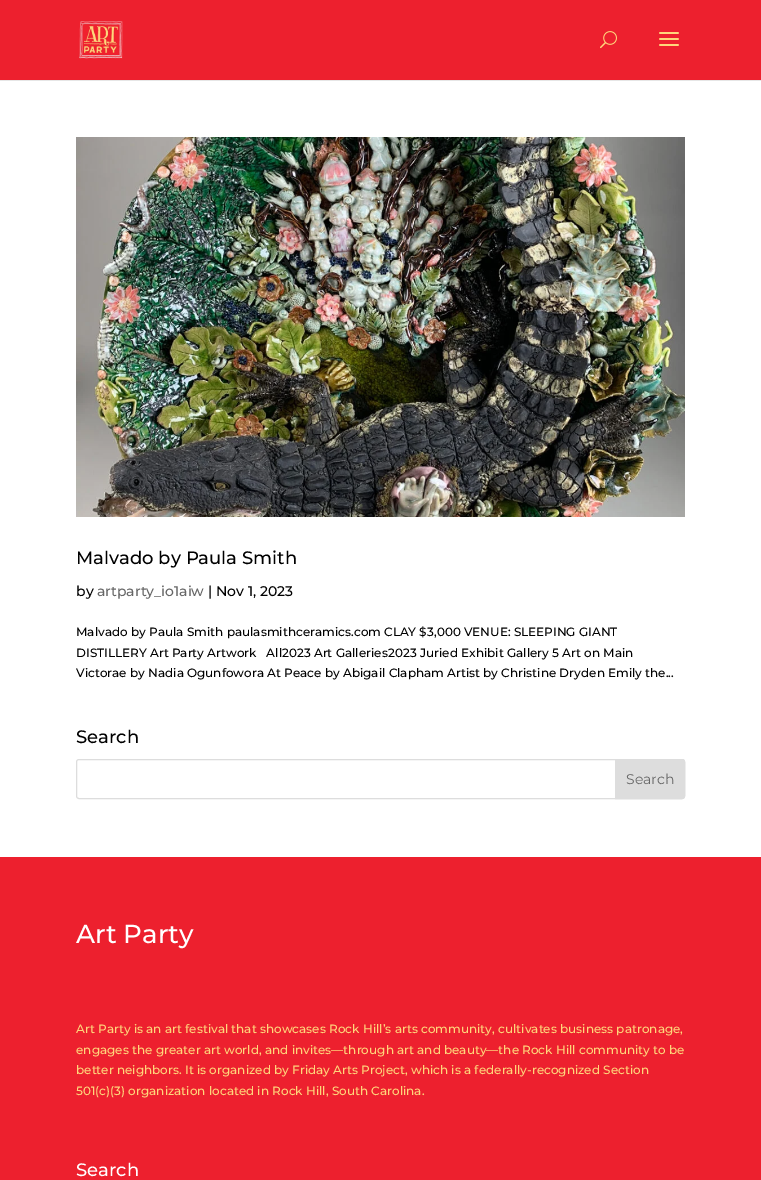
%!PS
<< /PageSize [761 1180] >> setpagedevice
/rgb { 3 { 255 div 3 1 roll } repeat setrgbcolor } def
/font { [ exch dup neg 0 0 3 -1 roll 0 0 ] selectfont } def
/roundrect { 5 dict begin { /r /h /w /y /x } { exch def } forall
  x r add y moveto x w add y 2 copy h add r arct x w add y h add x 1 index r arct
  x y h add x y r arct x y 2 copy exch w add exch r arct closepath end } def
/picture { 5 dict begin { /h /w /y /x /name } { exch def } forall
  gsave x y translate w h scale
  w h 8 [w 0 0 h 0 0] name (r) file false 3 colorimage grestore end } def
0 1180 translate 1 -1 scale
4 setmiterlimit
255 255 255 rgb
0 0 761 1180 rectfill
230 230 230 rgb
0 80 761 1 rectfill
237 32 46 rgb
0 0 761 80 rectfill
(img/1.rgb) 79 21 44 38 picture
(img/2.rgb) 600 31 17 18 picture
(img/3.rgb) 659 32 20 14 picture
(img/4.rgb) 76 137 609 380 picture
221 221 221 rgb
76.5 759.5 608 39 2.5 roundrect stroke
615.5 759.5 moveto 682 759.5 lineto 683.5 759.5 684.5 760.5 684.5 762 curveto 684.5 796 lineto 684.5 797.5 683.5 798.5 682 798.5 curveto 615.5 798.5 lineto closepath gsave fill grestore
stroke
237 32 46 rgb
0 857 761 323 rectfill
/Montserrat-Medium 18 font
0 0 0 rgb
76 564 moveto (Malvado by Paula Smith) show
/Montserrat-Medium 14 font
76 596 moveto (by) show
102 102 102 rgb
97 596 moveto (artparty_io1aiw) show
0 0 0 rgb
208 596 moveto (| Nov 1, 2023) show
/Montserrat-Medium 12 font
[
  [(Malvado by Paula Smith paulasmithceramics.com CLAY $3,000 VENUE: SLEEPING GIANT) 76 636]
  [(DISTILLERY Art Party Artwork   All2023 Art Galleries2023 Juried Exhibit Gallery 5 Art on Main) 76 657]
  [(Victorae by Nadia Ogunfowora At Peace by Abigail Clapham Artist by Christine Dryden Emily the...) 76 677]
] { aload pop moveto show } forall
/Montserrat-Medium 18 font
76 743 moveto (Search) show
/Montserrat-Regular 14 font
102 102 102 rgb
626 784 moveto (Search) show
/Montserrat-Medium 26 font
255 255 255 rgb
76 943 moveto (Art Party) show
/Montserrat-Medium 12 font
255 214 123 rgb
[
  [(Art Party is an art festival that showcases Rock Hill’s arts community, cultivates business patronage,) 76 1033]
  [(engages the greater art world, and invites—through art and beauty—the Rock Hill community to be) 76 1054]
  [(better neighbors. It is organized by Friday Arts Project, which is a federally-recognized Section) 76 1074]
  [(501\(c\)\(3\) organization located in Rock Hill, South Carolina.) 76 1095]
] { aload pop moveto show } forall
/Montserrat-Medium 18 font
255 255 255 rgb
76 1176 moveto (Search) show
showpage
